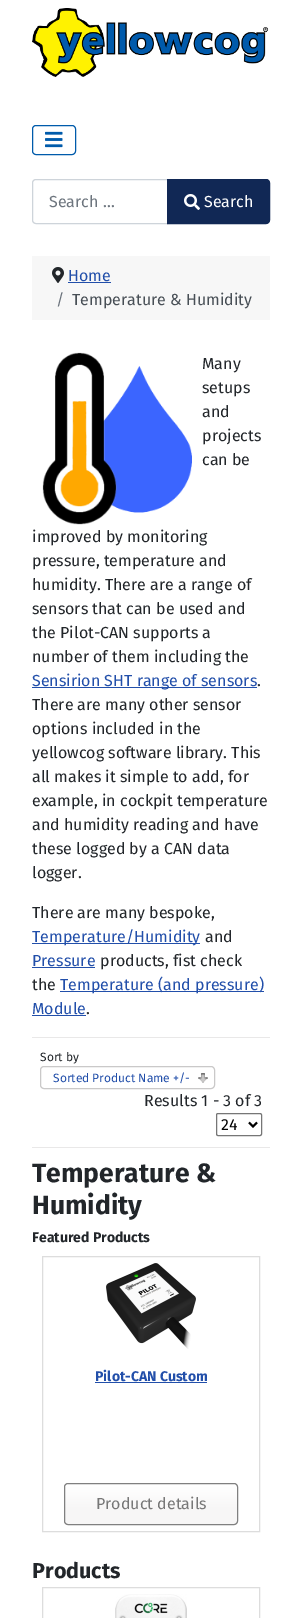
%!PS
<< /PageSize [302 1618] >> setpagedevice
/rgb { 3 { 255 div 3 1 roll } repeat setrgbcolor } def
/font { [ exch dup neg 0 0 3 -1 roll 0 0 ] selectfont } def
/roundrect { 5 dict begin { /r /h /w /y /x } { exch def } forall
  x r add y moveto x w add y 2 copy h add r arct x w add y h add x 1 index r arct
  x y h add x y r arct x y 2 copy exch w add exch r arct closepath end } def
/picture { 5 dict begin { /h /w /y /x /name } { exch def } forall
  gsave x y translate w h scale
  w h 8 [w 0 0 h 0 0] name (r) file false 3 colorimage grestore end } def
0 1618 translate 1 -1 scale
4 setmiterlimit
255 255 255 rgb
0 0 302 1618 rectfill
(img/1.rgb) 32 8 237 69 picture
0 91 171 rgb
32.5 125.5 43 29 3.5 roundrect stroke
(img/2.rgb) 45 131 18 17 picture
206 212 218 rgb
36 179.5 moveto 167.5 179.5 lineto 167.5 223.5 lineto 36 223.5 lineto 34 223.5 32.5 222 32.5 220 curveto 32.5 183 lineto 32.5 181 34 179.5 36 179.5 curveto closepath stroke
17 40 85 rgb
167.5 179.5 moveto 266 179.5 lineto 268 179.5 269.5 181 269.5 183 curveto 269.5 220 lineto 269.5 222 268 223.5 266 223.5 curveto 167.5 223.5 lineto closepath gsave fill grestore
stroke
(img/3.rgb) 184 194 16 16 picture
247 247 247 rgb
32 256 238 64 rectfill
(img/4.rgb) 52 267 12 16 picture
34 79 170 rgb
68 282 43 1 rectfill
(img/5.rgb) 42 352 150 173 picture
[
  [32 687 225 1 34 79 170]
  [32 943 168 1 34 79 170]
  [32 967 63 1 34 79 170]
  [60 991 204 1 34 79 170]
  [32 1015 54 1 34 79 170]
  [32 1037 238 1 233 232 232]
  [32 1147 238 1 233 232 232]
] { aload pop rgb rectfill } forall
(img/6.rgb) 198 1073 10 10 picture
202 201 201 rgb
40.5 1066.5 174 22 3.5 roundrect stroke
118 118 118 rgb
216.5 1113.5 45 22 1.5 roundrect stroke
0 0 0 rgb
2 setlinewidth
249 1122.5 moveto 253 1126.5 lineto 257 1122.5 lineto stroke
221 221 221 rgb
1 setlinewidth
42.5 1256.5 217 275 rectstroke
(img/7.rgb) 106 1263 90 86 picture
34 79 170 rgb
95 1382 112 1 rectfill
(img/8.rgb) 64 1484 174 41 picture
128 128 128 rgb
64.5 1483.5 173 41 3.5 roundrect stroke
221 221 221 rgb
42.5 1587.5 217 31 rectstroke
(img/9.rgb) 115 1594 72 24 picture
/FiraSans-Regular 16 font
109 117 126 rgb
49 207 moveto (Search …) show
255 255 255 rgb
204 207 moveto (Search) show
34 79 170 rgb
68 281 moveto (Home) show
109 117 126 rgb
56 305 moveto (/) show
72 79 86 rgb
72 305 moveto (Temperature & Humidity) show
34 38 42 rgb
[
  [(Many) 202 369]
  [(setups) 202 393]
  [(and) 202 417]
  [(projects) 202 441]
  [(can be) 202 465]
  [(improved by monitoring) 32 542]
  [(pressure, temperature and) 32 566]
  [(humidity. There are a range of) 32 590]
  [(sensors that can be used and) 32 614]
  [(the Pilot-CAN supports a) 32 638]
  [(number of them including the) 32 662]
] { aload pop moveto show } forall
34 79 170 rgb
32 686 moveto (Sensirion SHT range of sensors) show
34 38 42 rgb
[
  [(.) 257 686]
  [(There are many other sensor) 32 710]
  [(options included in the) 32 734]
  [(yellowcog software library. This) 32 758]
  [(all makes it simple to add, for) 32 782]
  [(example, in cockpit temperature) 32 806]
  [(and humidity reading and have) 32 830]
  [(these logged by a CAN data) 32 854]
  [(logger.) 32 878]
  [(There are many bespoke,) 32 918]
] { aload pop moveto show } forall
34 79 170 rgb
32 942 moveto (Temperature/Humidity) show
34 38 42 rgb
205 942 moveto (and) show
34 79 170 rgb
32 966 moveto (Pressure) show
34 38 42 rgb
100 966 moveto (products, fist check) show
32 990 moveto (the) show
34 79 170 rgb
60 990 moveto (Temperature \(and pressure\)) show
32 1014 moveto (Module) show
34 38 42 rgb
86 1014 moveto (.) show
/FiraSans-Regular 12 font
40 1061 moveto (Sort by) show
34 79 170 rgb
53 1082 moveto (Sorted Product Name +/-) show
/FiraSans-Regular 16 font
34 38 42 rgb
144 1106 moveto (Results 1 - 3 of 3) show
0 0 0 rgb
221 1130 moveto (24) show
/FiraSans-Bold 26.5 font
34 38 42 rgb
32 1182 moveto (Temperature &) show
32 1214 moveto (Humidity) show
/FiraSans-Bold 14 font
32 1242 moveto (Featured Products) show
34 79 170 rgb
95 1381 moveto (Pilot-CAN Custom) show
/FiraSans-Regular 16 font
119 119 119 rgb
96 1509 moveto (Product details) show
/FiraSans-Bold 21.5 font
34 38 42 rgb
32 1578 moveto (Products) show
showpage
